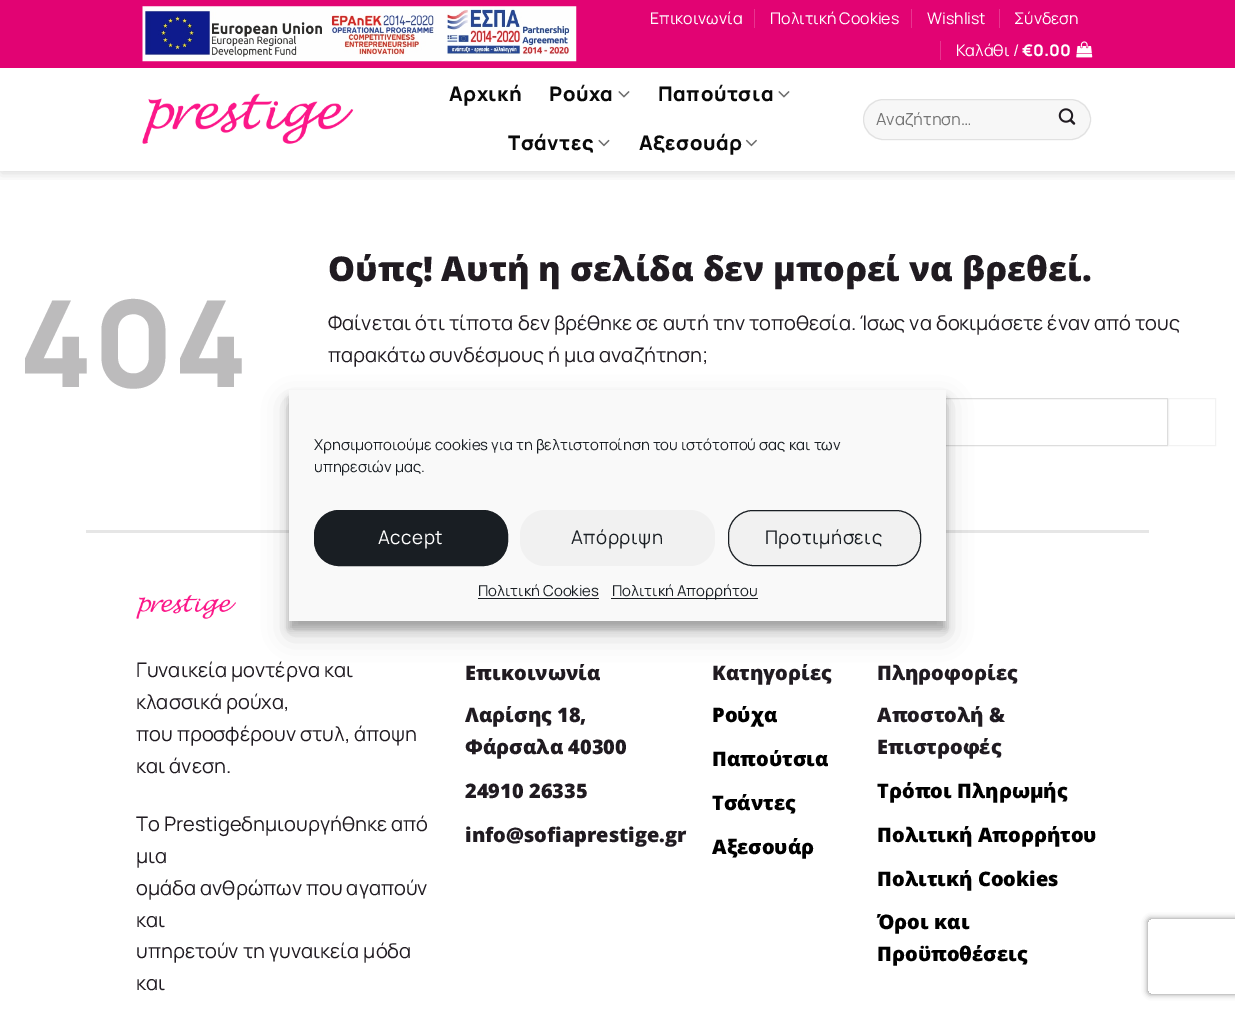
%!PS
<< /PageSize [1235 1011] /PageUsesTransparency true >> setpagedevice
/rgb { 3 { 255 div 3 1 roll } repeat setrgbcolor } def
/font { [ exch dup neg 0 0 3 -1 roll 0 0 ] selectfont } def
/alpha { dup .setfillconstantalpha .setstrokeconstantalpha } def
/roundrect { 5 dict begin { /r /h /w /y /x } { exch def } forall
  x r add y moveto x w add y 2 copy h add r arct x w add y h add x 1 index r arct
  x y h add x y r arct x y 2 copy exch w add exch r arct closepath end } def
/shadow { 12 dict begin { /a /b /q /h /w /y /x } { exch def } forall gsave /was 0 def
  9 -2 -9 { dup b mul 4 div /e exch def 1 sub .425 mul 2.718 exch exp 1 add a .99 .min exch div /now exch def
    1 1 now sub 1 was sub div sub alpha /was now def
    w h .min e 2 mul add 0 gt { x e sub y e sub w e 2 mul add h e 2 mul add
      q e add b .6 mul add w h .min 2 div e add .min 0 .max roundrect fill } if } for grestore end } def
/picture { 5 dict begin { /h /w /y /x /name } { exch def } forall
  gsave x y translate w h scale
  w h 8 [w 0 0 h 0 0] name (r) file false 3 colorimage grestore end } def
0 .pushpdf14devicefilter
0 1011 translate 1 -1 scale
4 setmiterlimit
255 255 255 rgb
0 0 1235 1011 rectfill
gsave
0 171 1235 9 rectclip
0 0 0 rgb
1 1 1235 172 0 6 0.15 shadow
grestore
226 3 115 rgb
0 0 1235 68 rectfill
(img/1.rgb) 142 6 435 56 picture
[
  [754 9 1 19 232 53 143]
  [911 9 1 19 232 53 143]
  [999 9 1 19 232 53 143]
  [940 41 1 19 232 53 143]
] { aload pop rgb rectfill } forall
(img/2.rgb) 1076 41 17 17 picture
(img/3.rgb) 142 93 212 51 picture
(img/4.rgb) 618 91 12 7 picture
(img/4.rgb) 778 91 12 7 picture
(img/5.rgb) 598 139 12 8 picture
(img/6.rgb) 745 139 12 8 picture
247 247 247 rgb
863 99 228 41 20.5 roundrect fill
0.09 alpha
0 0 0 rgb
863.5 99.5 227 40 20 roundrect stroke
1 alpha
(img/7.rgb) 1058 108 18 17 picture
221 221 221 rgb
328.5 398.5 839 47 rectstroke
242 242 242 rgb
1168.5 398.5 47 47 rectstroke
230 230 230 rgb
86 530 1063 3 rectfill
(img/8.rgb) 136 595 100 24 picture
0 0 0 rgb
289 398 657 231 0 4 0.23 shadow
289 403 657 231 0 12.5 0.19 shadow
249 249 249 rgb
289 390 657 231 rectfill
25 30 35 rgb
314.5 510.5 193 55 24.5 roundrect gsave fill grestore
stroke
241 241 241 rgb
520 510 195 56 25 roundrect fill
728.5 510.5 192 55 24.5 roundrect gsave fill grestore
25 30 35 rgb
stroke
478 598 121 1 rectfill
611 598 147 1 rectfill
gsave
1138 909 moveto 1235 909 lineto 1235 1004 lineto 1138 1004 lineto closepath 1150.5 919 moveto 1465.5 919 lineto 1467 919 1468 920 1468 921.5 curveto 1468 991.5 lineto 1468 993 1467 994 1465.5 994 curveto 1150.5 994 lineto 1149 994 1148 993 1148 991.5 curveto 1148 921.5 lineto 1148 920 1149 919 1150.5 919 curveto closepath eoclip newpath
128 128 128 rgb
1148 919 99 75 2.5 3 1 shadow
grestore
/Manrope-Regular 16 font
255 255 255 rgb
[
  [(Επικοινωνία) 650 24]
  [(Πολιτική Cookies) 770 24]
  [(Wishlist) 927 24]
  [(Σύνδεση) 1014 24]
  [(Καλάθι /) 956 56]
] { aload pop moveto show } forall
/Manrope-ExtraBold 16 font
1022 56 moveto (€0.00) show
/Manrope-ExtraBold 20 font
10 10 10 rgb
449 101 moveto 0.5 0 (Αρχική) ashow
549 101 moveto 0.5 0 (Ρούχα) ashow
658 101 moveto 0.5 0 (Παπούτσια) ashow
508 150 moveto 0.5 0 (Τσάντες) ashow
639 150 moveto 0.5 0 (Αξεσουάρ) ashow
/Manrope-Regular 16.5 font
117 117 117 rgb
876 125 moveto (Αναζήτηση…) show
/Manrope-ExtraBold 120 font
188 187 188 rgb
19 387 moveto (404) show
/OpenSans-ExtraBold 34 font
32 27 33 rgb
328 281 moveto (Ούπς! Αυτή η σελίδα δεν μπορεί να βρεθεί.) show
/Manrope-Regular 20 font
[
  [(Φαίνεται ότι τίποτα δεν βρέθηκε σε αυτή την τοποθεσία. Ίσως να δοκιμάσετε έναν από τους) 328 330]
  [(παρακάτω συνδέσμους ή μια αναζήτηση;) 328 362]
  [(Γυναικεία μοντέρνα και) 136 677]
  [(κλασσικά ρούχα,) 136 709]
  [(που προσφέρουν στυλ, άποψη) 136 741]
  [(και άνεση.) 136 773]
  [(Το Prestigeδημιουργήθηκε από) 136 831]
  [(μια) 136 863]
  [(ομάδα ανθρώπων που αγαπούν) 136 895]
  [(και) 136 927]
  [(υπηρετούν τη γυναικεία μόδα) 136 958]
  [(και) 136 990]
] { aload pop moveto show } forall
/OpenSans-ExtraBold 20 font
[
  [(Επικοινωνία) 465 680]
  [(Λαρίσης 18,) 465 722]
  [(Φάρσαλα 40300) 465 754]
  [(24910 26335) 465 798]
  [(info@sofiaprestige.gr) 465 842]
  [(Κατηγορίες) 712 680]
] { aload pop moveto show } forall
0 0 0 rgb
[
  [(Ρούχα) 712 722]
  [(Παπούτσια) 712 766]
  [(Τσάντες) 712 810]
  [(Αξεσουάρ) 712 854]
] { aload pop moveto show } forall
32 27 33 rgb
[
  [(Πληροφορίες) 877 680]
  [(Αποστολή &) 877 722]
  [(Επιστροφές) 877 754]
] { aload pop moveto show } forall
0 0 0 rgb
[
  [(Τρόποι Πληρωμής) 877 798]
  [(Πολιτική Απορρήτου) 877 842]
  [(Πολιτική Cookies) 877 886]
  [(Όροι και) 877 929]
  [(Προϋποθέσεις) 877 961]
] { aload pop moveto show } forall
/Manrope-Regular 15 font
25 30 35 rgb
314 450 moveto (Χρησιμοποιούμε cookies για τη βελτιστοποίηση του ιστότοπού σας και των) show
314 472 moveto (υπηρεσιών μας.) show
/Manrope-Regular 18.75 font
255 255 255 rgb
378 544 moveto 0.5 0 (Accept) ashow
25 30 35 rgb
571 544 moveto 0.5 0 (Απόρριψη) ashow
765 544 moveto 0.5 0 (Προτιμήσεις) ashow
/Manrope-Regular 15 font
478 596 moveto (Πολιτική Cookies) show
612 596 moveto (Πολιτική Απορρήτου) show
.poppdf14devicefilter showpage
